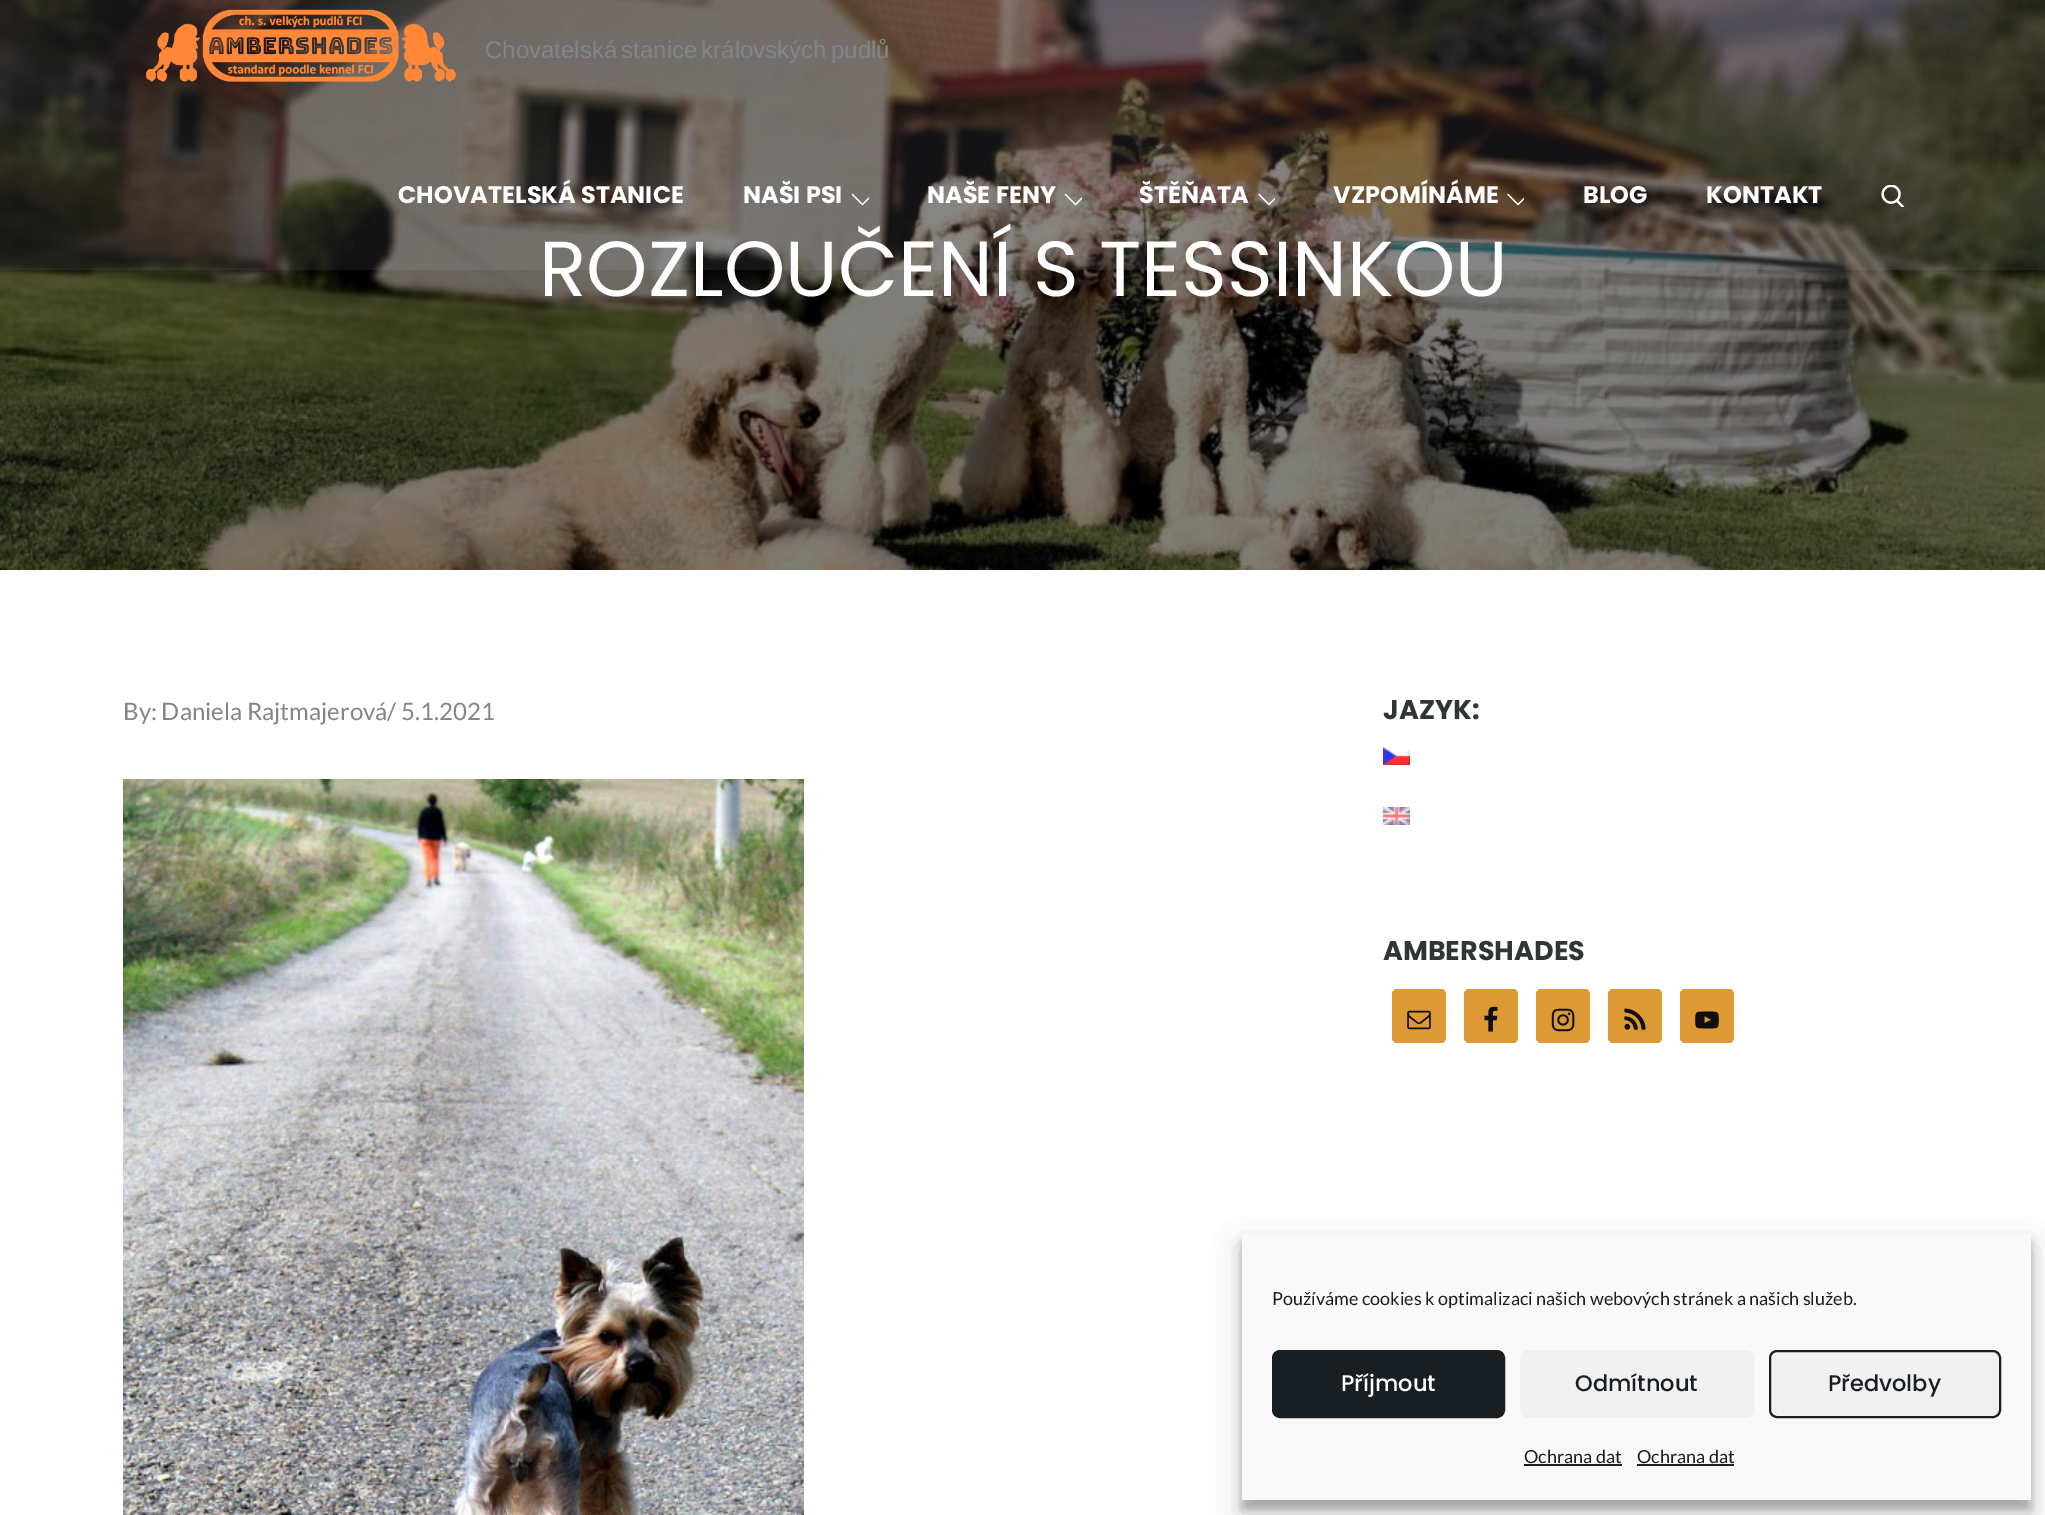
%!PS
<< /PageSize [2045 1515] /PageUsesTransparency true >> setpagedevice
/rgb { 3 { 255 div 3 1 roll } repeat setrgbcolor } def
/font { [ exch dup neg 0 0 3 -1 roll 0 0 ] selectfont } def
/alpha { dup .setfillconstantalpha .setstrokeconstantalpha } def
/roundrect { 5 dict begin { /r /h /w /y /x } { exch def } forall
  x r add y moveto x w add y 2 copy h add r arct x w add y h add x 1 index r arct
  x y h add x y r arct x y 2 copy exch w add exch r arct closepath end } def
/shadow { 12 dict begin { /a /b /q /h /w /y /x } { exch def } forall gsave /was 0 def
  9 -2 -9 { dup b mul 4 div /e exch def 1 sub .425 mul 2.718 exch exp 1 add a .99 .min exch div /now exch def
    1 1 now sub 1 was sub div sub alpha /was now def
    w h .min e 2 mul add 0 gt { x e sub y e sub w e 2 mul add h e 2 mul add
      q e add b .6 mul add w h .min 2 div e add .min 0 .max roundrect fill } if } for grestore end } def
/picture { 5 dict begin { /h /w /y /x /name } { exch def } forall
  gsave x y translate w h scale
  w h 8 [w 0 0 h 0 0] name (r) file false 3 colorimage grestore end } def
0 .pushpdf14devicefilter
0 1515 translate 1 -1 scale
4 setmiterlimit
255 255 255 rgb
0 0 2045 1515 rectfill
(img/7.rgb) 0 0 2045 570 picture
0.08 alpha
229 229 255 rgb
0 0 2045 270 rectfill
1 alpha
(img/1.rgb) 146 9 310 73 picture
(img/2.rgb) 851 193 18 13 picture
(img/3.rgb) 1064 193 18 13 picture
(img/4.rgb) 1258 193 17 13 picture
(img/5.rgb) 1507 193 17 13 picture
(img/6.rgb) 1881 185 23 22 picture
(img/8.rgb) 123 779 681 736 picture
(img/9.rgb) 1383 747 27 18 picture
(img/10.rgb) 1383 807 27 18 picture
221 153 51 rgb
1392 989 54 54 5 roundrect fill
(img/11.rgb) 1407 1010 24 20 picture
1464 989 54 54 5 roundrect fill
(img/12.rgb) 1484 1006 14 26 picture
1536 989 54 54 5 roundrect fill
(img/13.rgb) 1551 1008 24 24 picture
1608 989 54 54 5 roundrect fill
(img/14.rgb) 1624 1008 22 22 picture
1680 989 54 54 5 roundrect fill
(img/15.rgb) 1695 1011 24 18 picture
0 0 0 rgb
1242 1242 789 267 0 4.5 0.23 shadow
1242 1248 789 267 0 15 0.19 shadow
249 249 249 rgb
1242 1233 789 267 rectfill
25 30 35 rgb
1273 1351 231 66 7 roundrect gsave fill grestore
2 setlinewidth
stroke
241 241 241 rgb
1520 1350 234 68 8 roundrect fill
1770 1351 230 66 7 roundrect gsave fill grestore
25 30 35 rgb
stroke
1524 1464 98 2 rectfill
1637 1464 97 2 rectfill
/LiberationSans-Regular 24 font
130 134 139 rgb
485 58 moveto -2.5 0 32 (Chovatelská stanice královských pudlů) widthshow
/Poppins-Bold 24 font
255 255 255 rgb
[
  [(CHOVATELSKÁ STANICE) 398 203]
  [(NAŠI PSI) 743 203]
  [(NAŠE FENY) 927 203]
  [(ŠTĚŇATA) 1139 203]
  [(VZPOMÍNÁME) 1333 203]
  [(BLOG) 1583 203]
  [(KONTAKT) 1706 203]
] { aload pop moveto show } forall
/Poppins-Regular 78 font
539 296 moveto (ROZLOUČENÍ S TESSINKOU) show
/Lato-Regular 24 font
130 134 139 rgb
123 720 moveto (By: Daniela Rajtmajerová/ 5.1.2021) show
/Poppins-Bold 27 font
47 54 51 rgb
1383 719 moveto (JAZYK:) show
1383 960 moveto (AMBERSHADES) show
/Lato-Regular 18 font
25 30 35 rgb
1272 1305 moveto (Používáme cookies k optimalizaci našich webových stránek a našich služeb.) show
/Poppins-Medium 22.5 font
255 255 255 rgb
1341 1391 moveto (Příjmout) show
25 30 35 rgb
1575 1391 moveto (Odmítnout) show
1828 1391 moveto (Předvolby) show
/Lato-Regular 18 font
1524 1463 moveto (Ochrana dat) show
1637 1463 moveto (Ochrana dat) show
.poppdf14devicefilter showpage
